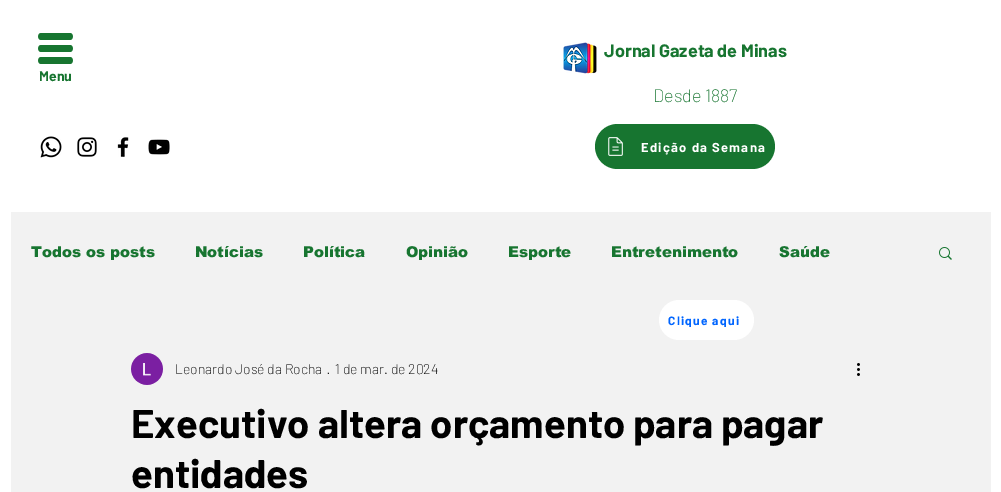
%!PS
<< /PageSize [1001 492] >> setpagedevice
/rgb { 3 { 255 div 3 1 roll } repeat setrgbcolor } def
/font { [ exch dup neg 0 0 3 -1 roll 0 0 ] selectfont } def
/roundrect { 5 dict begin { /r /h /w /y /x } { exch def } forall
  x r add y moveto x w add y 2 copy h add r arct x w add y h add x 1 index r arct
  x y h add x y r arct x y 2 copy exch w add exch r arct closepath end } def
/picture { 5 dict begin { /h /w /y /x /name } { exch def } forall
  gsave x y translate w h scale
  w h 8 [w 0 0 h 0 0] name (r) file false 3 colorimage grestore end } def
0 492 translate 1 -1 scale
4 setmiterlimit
255 255 255 rgb
0 0 1001 492 rectfill
(img/1.rgb) 38 33 35 31 picture
(img/2.rgb) 563 42 34 32 picture
(img/3.rgb) 40 136 22 22 picture
(img/4.rgb) 77 137 20 20 picture
(img/5.rgb) 117 137 12 20 picture
(img/6.rgb) 148 139 22 16 picture
23 117 48 rgb
595 124 180 45 22.5 roundrect fill
(img/7.rgb) 608 137 15 19 picture
242 242 242 rgb
11 212 980 280 rectfill
(img/8.rgb) 939 247 13 13 picture
(img/9.rgb) 131 353 32 32 picture
(img/10.rgb) 857 363 3 13 picture
255 255 255 rgb
659 300 95 40 20 roundrect fill
/Barlow-Bold 14 font
23 117 48 rgb
39 81 moveto (Menu) show
/Barlow-Bold 18 font
604 57 moveto (Jornal Gazeta de Minas) show
/Barlow-ExtraLight 18 font
653 102 moveto (Desde 1887) show
/Barlow-Bold 13 font
255 255 255 rgb
641 152 moveto 1.25 0 (Edição da Semana) ashow
/arial-Black 15 font
23 117 48 rgb
[
  [(Todos os posts) 31 257]
  [(Notícias) 195 257]
  [(Política) 303 257]
  [(Opinião) 406 257]
  [(Esporte) 508 257]
  [(Entretenimento) 611 257]
  [(Saúde) 779 257]
] { aload pop moveto show } forall
/Barlow-ExtraLight 14 font
0 0 0 rgb
[
  [(Leonardo José da Rocha) 175 374]
  [(·) 328 374]
  [(1 de mar. de 2024) 335 374]
] { aload pop moveto show } forall
/Barlow-Bold 40 font
131 438 moveto (Executivo altera orçamento para pagar) show
131 488 moveto (entidades) show
gsave
668 313 72 14 rectclip
/Barlow-Bold 12 font
0 101 255 rgb
668 325 moveto 1.25 0 (Clique aqui) ashow
grestore
showpage
